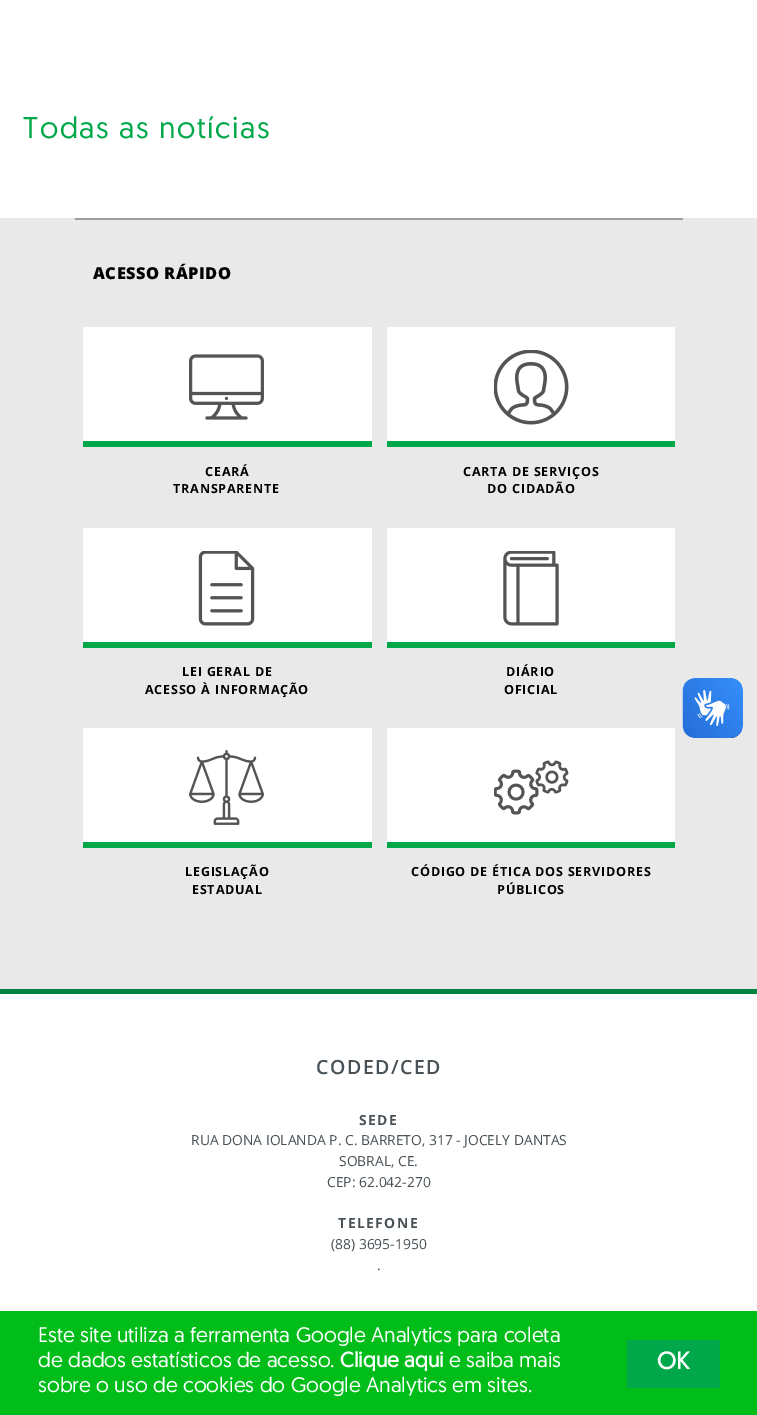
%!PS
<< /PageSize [757 1415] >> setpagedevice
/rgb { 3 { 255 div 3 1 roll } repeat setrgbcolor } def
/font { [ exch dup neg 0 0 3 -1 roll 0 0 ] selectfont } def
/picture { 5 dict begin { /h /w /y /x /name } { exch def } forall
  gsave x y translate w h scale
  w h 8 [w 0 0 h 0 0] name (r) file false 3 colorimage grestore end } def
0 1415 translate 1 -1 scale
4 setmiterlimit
255 255 255 rgb
0 0 757 1415 rectfill
[
  [0 218 757 771 233 233 233]
  [75 218 608 2 153 157 160]
  [83 327 289 114 255 255 255]
] { aload pop rgb rectfill } forall
(img/1.rgb) 189 354 75 66 picture
0 168 74 rgb
83 441 289 6 rectfill
255 255 255 rgb
387 327 288 114 rectfill
(img/2.rgb) 494 350 75 75 picture
0 168 74 rgb
387 441 288 6 rectfill
255 255 255 rgb
83 528 289 114 rectfill
(img/3.rgb) 198 551 57 75 picture
0 168 74 rgb
83 642 289 6 rectfill
255 255 255 rgb
387 528 288 114 rectfill
(img/4.rgb) 503 551 56 75 picture
0 168 74 rgb
387 642 288 6 rectfill
255 255 255 rgb
83 728 289 114 rectfill
(img/5.rgb) 189 750 75 75 picture
0 168 74 rgb
83 842 289 6 rectfill
255 255 255 rgb
387 728 288 114 rectfill
(img/6.rgb) 494 760 75 55 picture
0 168 74 rgb
387 842 288 6 rectfill
(img/7.rgb) 682 678 61 60 picture
(img/8.rgb) 683 678 60 60 picture
[
  [0 989 757 5 0 132 66]
  [0 1311 757 104 0 189 25]
  [627 1340 93 48 0 168 74]
] { aload pop rgb rectfill } forall
/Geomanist-Regular 30 font
23 138 moveto 1.5 0 (Todas as notícias) ashow
/OpenSans-ExtraBold 16.4 font
0 0 0 rgb
93 279 moveto 0.5 0 (ACESSO RÁPIDO) ashow
/OpenSans-Bold 12.6 font
205 476 moveto 0.75 0 (CEARÁ) ashow
173 493 moveto 0.75 0 (TRANSPARENTE) ashow
463 476 moveto 0.75 0 (CARTA DE SERVIÇOS) ashow
487 493 moveto 0.75 0 (DO CIDADÃO) ashow
182 676 moveto 0.75 0 (LEI GERAL DE) ashow
145 694 moveto 0.75 0 (ACESSO À INFORMAÇÃO) ashow
506 676 moveto 0.75 0 (DIÁRIO) ashow
504 694 moveto 0.75 0 (OFICIAL) ashow
185 876 moveto 0.75 0 (LEGISLAÇÃO) ashow
192 894 moveto 0.75 0 (ESTADUAL) ashow
411 876 moveto 0.75 0 (CÓDIGO DE ÉTICA DOS SERVIDORES) ashow
497 894 moveto 0.75 0 (PÚBLICOS) ashow
/OpenSans-SemiBold 19.5 font
72 81 86 rgb
316 1074 moveto 1.5 0 (CODED/CED) ashow
/OpenSans-Bold 13.85 font
359 1125 moveto 1.5 0 (SEDE) ashow
/OpenSans-Regular 13.85 font
[
  [(RUA DONA IOLANDA P. C. BARRETO, 317 - JOCELY DANTAS) 191 1145]
  [(SOBRAL, CE.) 339 1166]
  [(CEP: 62.042-270) 327 1187]
] { aload pop moveto show } forall
/OpenSans-Bold 13.85 font
338 1228 moveto 1.5 0 (TELEFONE) ashow
/OpenSans-Regular 13.85 font
331 1249 moveto (\(88\) 3695-1950) show
377 1270 moveto (.) show
/Geomanist-Regular 21 font
255 255 255 rgb
38 1342 moveto (Este site utiliza a ferramenta Google Analytics para coleta) show
38 1367 moveto (de dados estatísticos de acesso.) show
/Geomanist-Bold 21 font
340 1367 moveto (Clique aqui) show
/Geomanist-Regular 21 font
449 1367 moveto (e saiba mais) show
38 1392 moveto (sobre o uso de cookies do Google Analytics em sites.) show
/Geomanist-Bold 24 font
657 1369 moveto (OK) show
showpage
